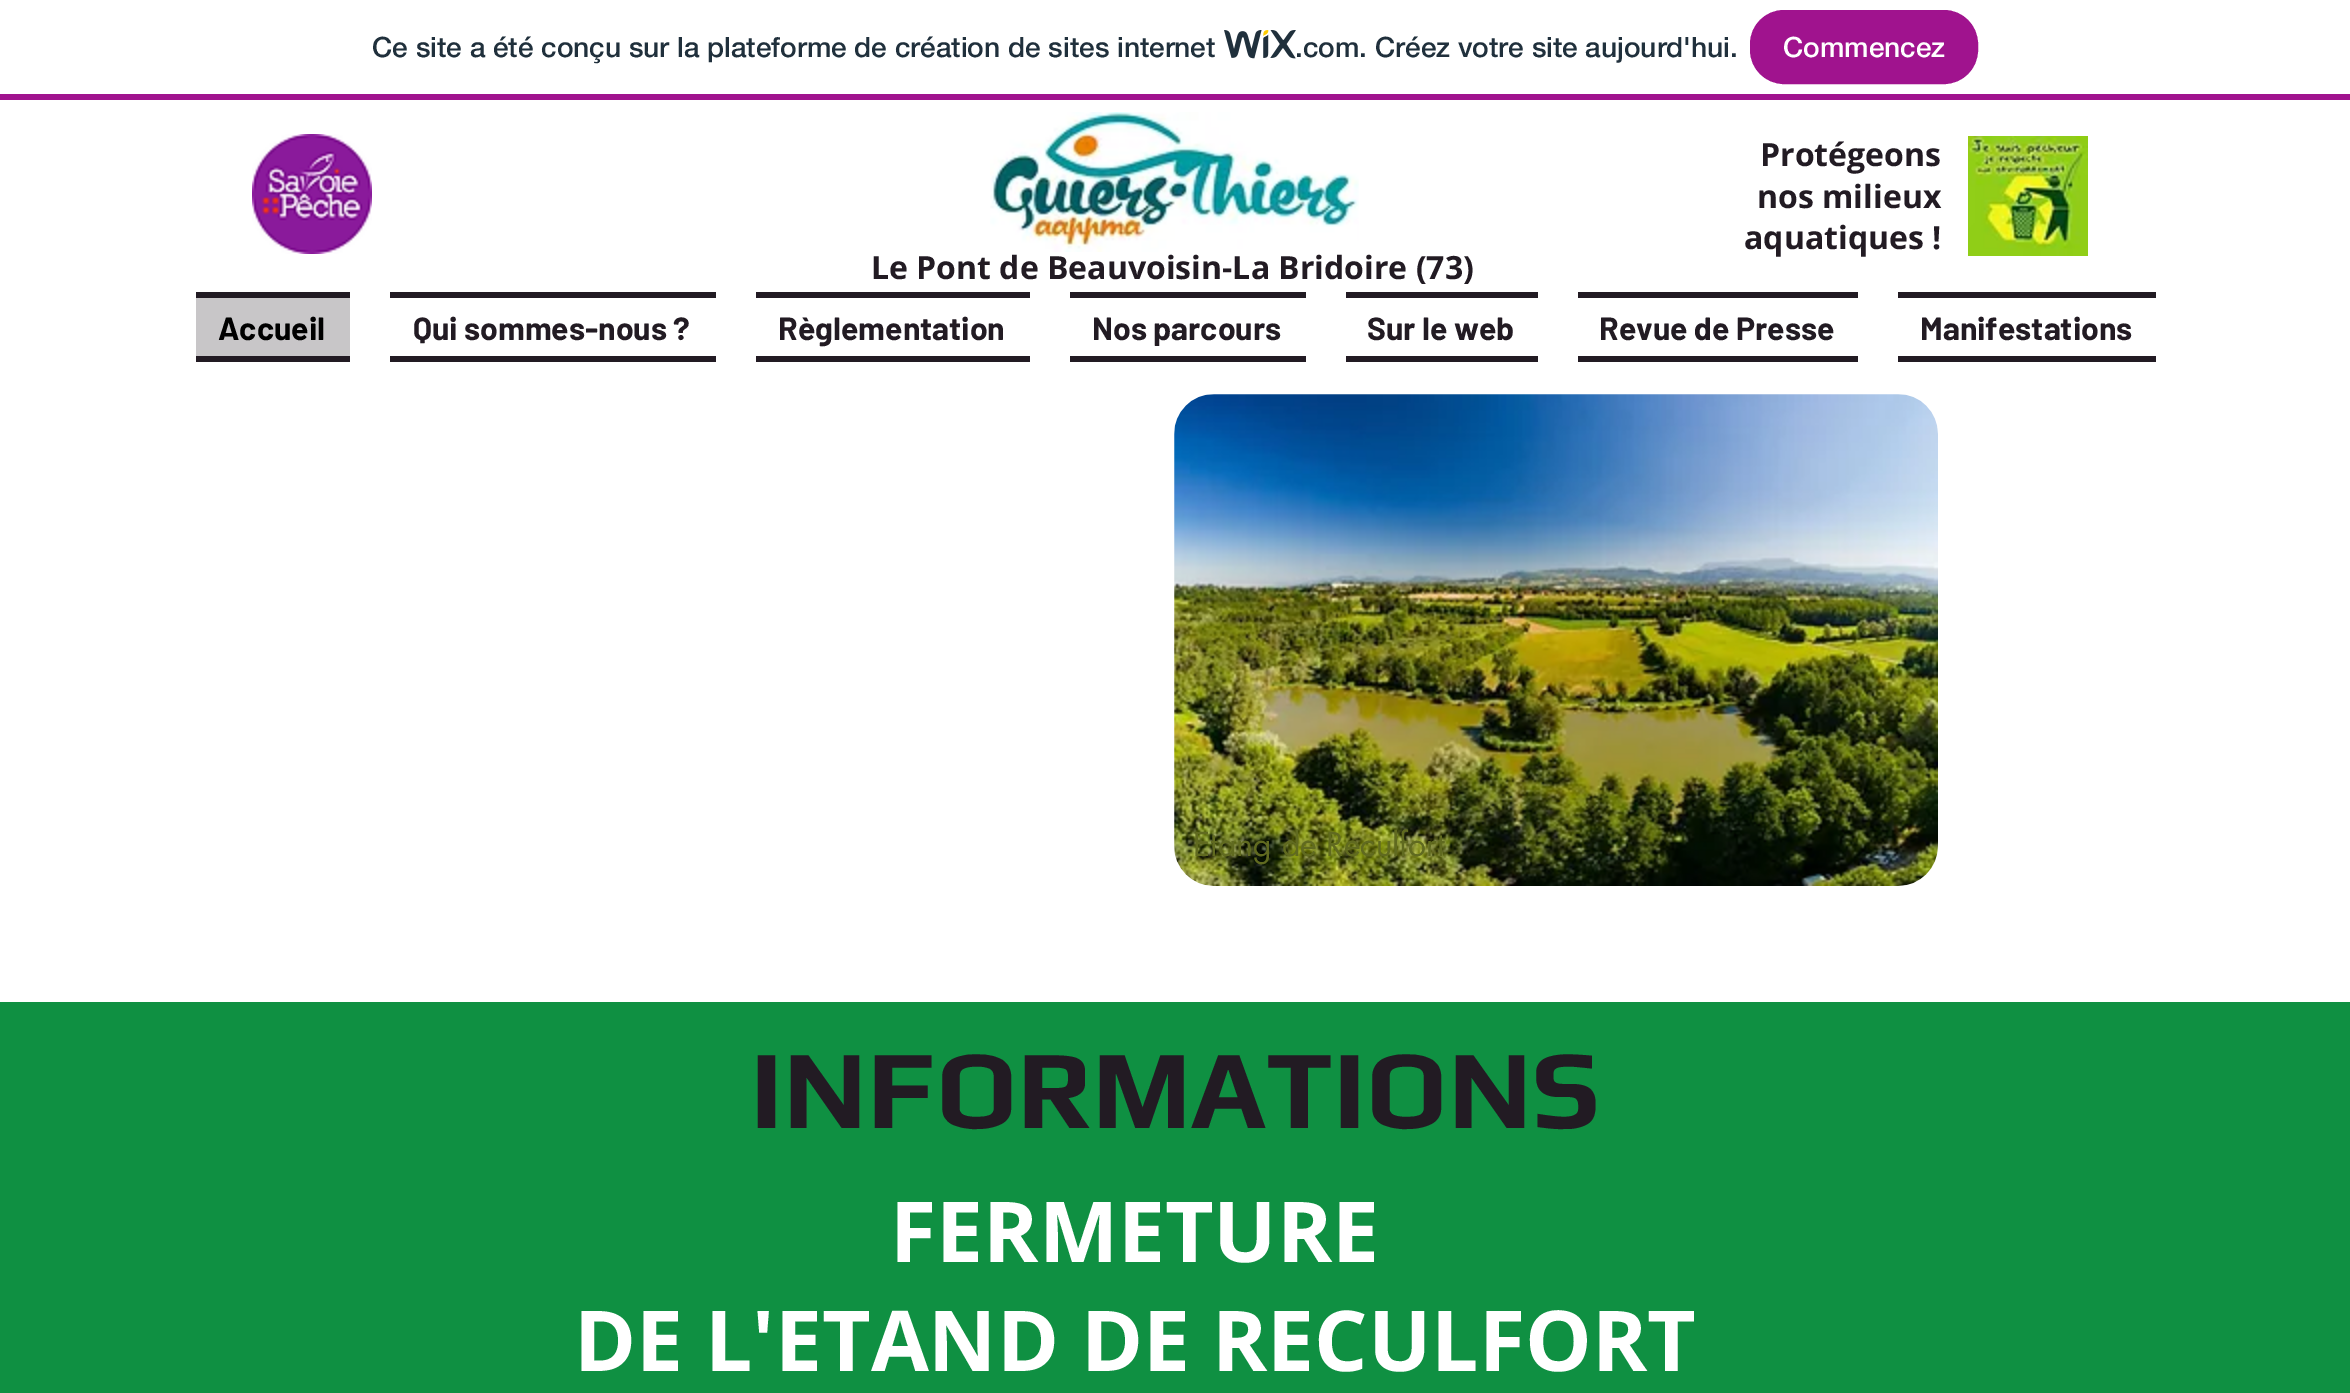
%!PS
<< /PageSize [2350 1393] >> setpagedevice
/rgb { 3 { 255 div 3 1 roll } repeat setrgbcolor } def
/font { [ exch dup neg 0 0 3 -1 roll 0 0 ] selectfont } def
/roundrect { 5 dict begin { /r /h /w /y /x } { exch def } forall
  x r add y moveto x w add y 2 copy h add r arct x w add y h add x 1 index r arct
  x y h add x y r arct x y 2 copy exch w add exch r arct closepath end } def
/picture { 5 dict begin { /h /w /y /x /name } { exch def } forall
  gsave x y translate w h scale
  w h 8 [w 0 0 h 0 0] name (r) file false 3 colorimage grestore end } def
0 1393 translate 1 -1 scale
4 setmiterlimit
255 255 255 rgb
0 0 2350 1393 rectfill
160 19 142 rgb
0 94 2350 6 rectfill
(img/1.rgb) 1224 30 72 29 picture
1751 11 226 72 33 roundrect gsave fill grestore
2 setlinewidth
stroke
(img/2.rgb) 252 134 120 120 picture
(img/3.rgb) 990 112 369 140 picture
(img/4.rgb) 1968 136 120 120 picture
[
  [196 298 154 58 200 198 200]
  [196 292 154 6 34 27 35]
  [196 356 154 6 34 27 35]
  [390 292 326 6 34 27 35]
  [390 356 326 6 34 27 35]
  [756 292 274 6 34 27 35]
  [756 356 274 6 34 27 35]
  [1070 292 236 6 34 27 35]
  [1070 356 236 6 34 27 35]
  [1346 292 192 6 34 27 35]
  [1346 356 192 6 34 27 35]
  [1578 292 280 6 34 27 35]
  [1578 356 280 6 34 27 35]
  [1898 292 258 6 34 27 35]
  [1898 356 258 6 34 27 35]
] { aload pop rgb rectfill } forall
(img/5.rgb) 1174 394 764 492 picture
255 255 255 rgb
4 setlinewidth
1172 392 768 496 38 roundrect stroke
15 144 66 rgb
0 1002 2350 391 rectfill
/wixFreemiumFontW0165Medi-Medium 28 font
32 48 60 rgb
372 57 moveto (Ce site a été conçu sur la plateforme de création de sites internet) show
1295 57 moveto (.com. Créez votre site aujourd'hui.) show
255 255 255 rgb
1783 57 moveto (Commencez) show
/OpenSans-Bold 32 font
34 27 35 rgb
[
  [(Protégeons) 1760 166]
  [(nos milieux) 1757 208]
  [(aquatiques !) 1744 249]
  [(Le Pont de Beauvoisin-La Bridoire \(73\)) 871 279]
] { aload pop moveto show } forall
/Barlow-Bold 32 font
0 0 0 rgb
218 340 moveto (Accueil) show
34 27 35 rgb
[
  [(Qui sommes-nous ?) 413 340]
  [(Règlementation) 778 340]
  [(Nos parcours) 1092 340]
  [(Sur le web) 1367 340]
  [(Revue de Presse) 1599 340]
  [(Manifestations) 1920 340]
] { aload pop moveto show } forall
/futura-Regular 32 font
96 106 32 rgb
1193 856 moveto (Etang de Reculfort) show
/Play-Bold 112 font
34 27 35 rgb
750 1128 moveto (INFORMATIONS) show
/OpenSans-Bold 84 font
255 255 255 rgb
890 1262 moveto (FERMETURE) show
574 1371 moveto (DE L'ETAND DE RECULFORT) show
showpage
